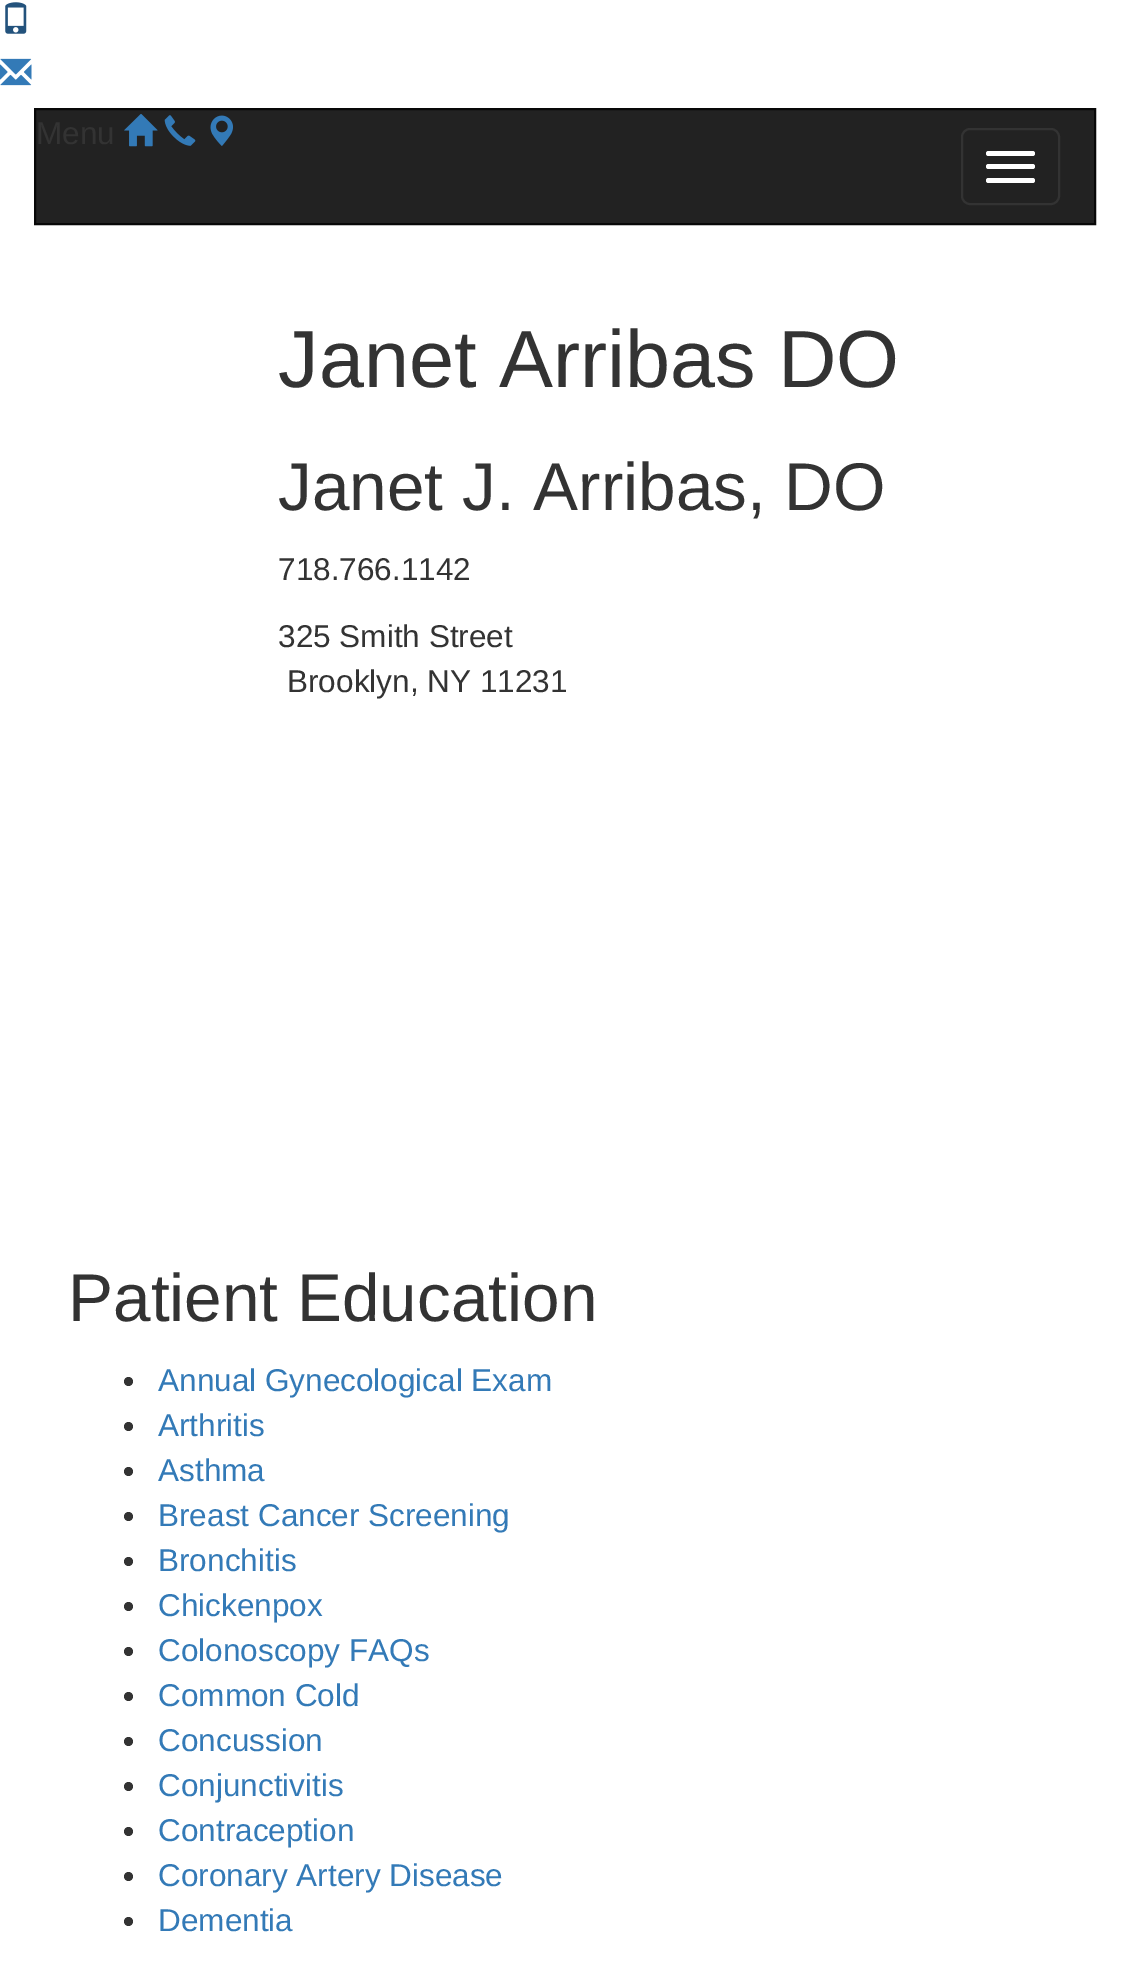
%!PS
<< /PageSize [1129 1988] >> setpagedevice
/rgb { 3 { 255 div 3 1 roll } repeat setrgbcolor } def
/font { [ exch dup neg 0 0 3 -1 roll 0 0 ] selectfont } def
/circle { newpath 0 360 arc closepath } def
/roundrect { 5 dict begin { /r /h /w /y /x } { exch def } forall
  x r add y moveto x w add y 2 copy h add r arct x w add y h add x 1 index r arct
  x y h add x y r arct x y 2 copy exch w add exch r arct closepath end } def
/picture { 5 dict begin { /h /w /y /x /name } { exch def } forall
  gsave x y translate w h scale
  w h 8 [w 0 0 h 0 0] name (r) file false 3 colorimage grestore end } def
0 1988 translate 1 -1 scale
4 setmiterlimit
255 255 255 rgb
0 0 1129 1988 rectfill
(img/1.rgb) 5 2 22 32 picture
(img/2.rgb) 0 58 32 28 picture
34 34 34 rgb
35 109 moveto 1095 109 lineto 1095 224 lineto 35 224 lineto closepath gsave fill grestore
8 8 8 rgb
2 setlinewidth
stroke
(img/3.rgb) 124 114 34 33 picture
(img/4.rgb) 164 115 32 31 picture
(img/5.rgb) 210 115 23 31 picture
51 51 51 rgb
962 129 97 75 8 roundrect stroke
255 255 255 rgb
986 151 49 5 2.5 roundrect fill
986 164 49 5 2.5 roundrect fill
986 178 49 5 2.5 roundrect fill
51 51 51 rgb
128.5 1381.5 4.5 circle fill
128.5 1426.5 4.5 circle fill
128.5 1471.5 4.5 circle fill
128.5 1516.5 4.5 circle fill
128.5 1561.5 4.5 circle fill
128.5 1606.5 4.5 circle fill
128.5 1651.5 4.5 circle fill
128.5 1696.5 4.5 circle fill
128.5 1741.5 4.5 circle fill
128.5 1786.5 4.5 circle fill
128.5 1831.5 4.5 circle fill
128.5 1876.5 4.5 circle fill
128.5 1921.5 4.5 circle fill
/LiberationSans-Regular 31.5 font
36 144 moveto (Menu) show
/LiberationSans-Regular 81 font
278 387 moveto (Janet Arribas DO) show
/LiberationSans-Regular 67.5 font
278 510 moveto (Janet J. Arribas, DO) show
/LiberationSans-Regular 31.5 font
[
  [(718.766.1142) 278 580]
  [(325 Smith Street) 278 647]
  [(Brooklyn, NY 11231) 287 692]
] { aload pop moveto show } forall
/LiberationSans-Regular 67.5 font
68 1321 moveto (Patient Education) show
/LiberationSans-Regular 31.5 font
51 122 183 rgb
[
  [(Annual Gynecological Exam) 158 1391]
  [(Arthritis) 158 1436]
  [(Asthma) 158 1481]
  [(Breast Cancer Screening) 158 1526]
  [(Bronchitis) 158 1571]
  [(Chickenpox) 158 1616]
  [(Colonoscopy FAQs) 158 1661]
  [(Common Cold) 158 1706]
  [(Concussion) 158 1751]
  [(Conjunctivitis) 158 1796]
  [(Contraception) 158 1841]
  [(Coronary Artery Disease) 158 1886]
  [(Dementia) 158 1931]
] { aload pop moveto show } forall
showpage
